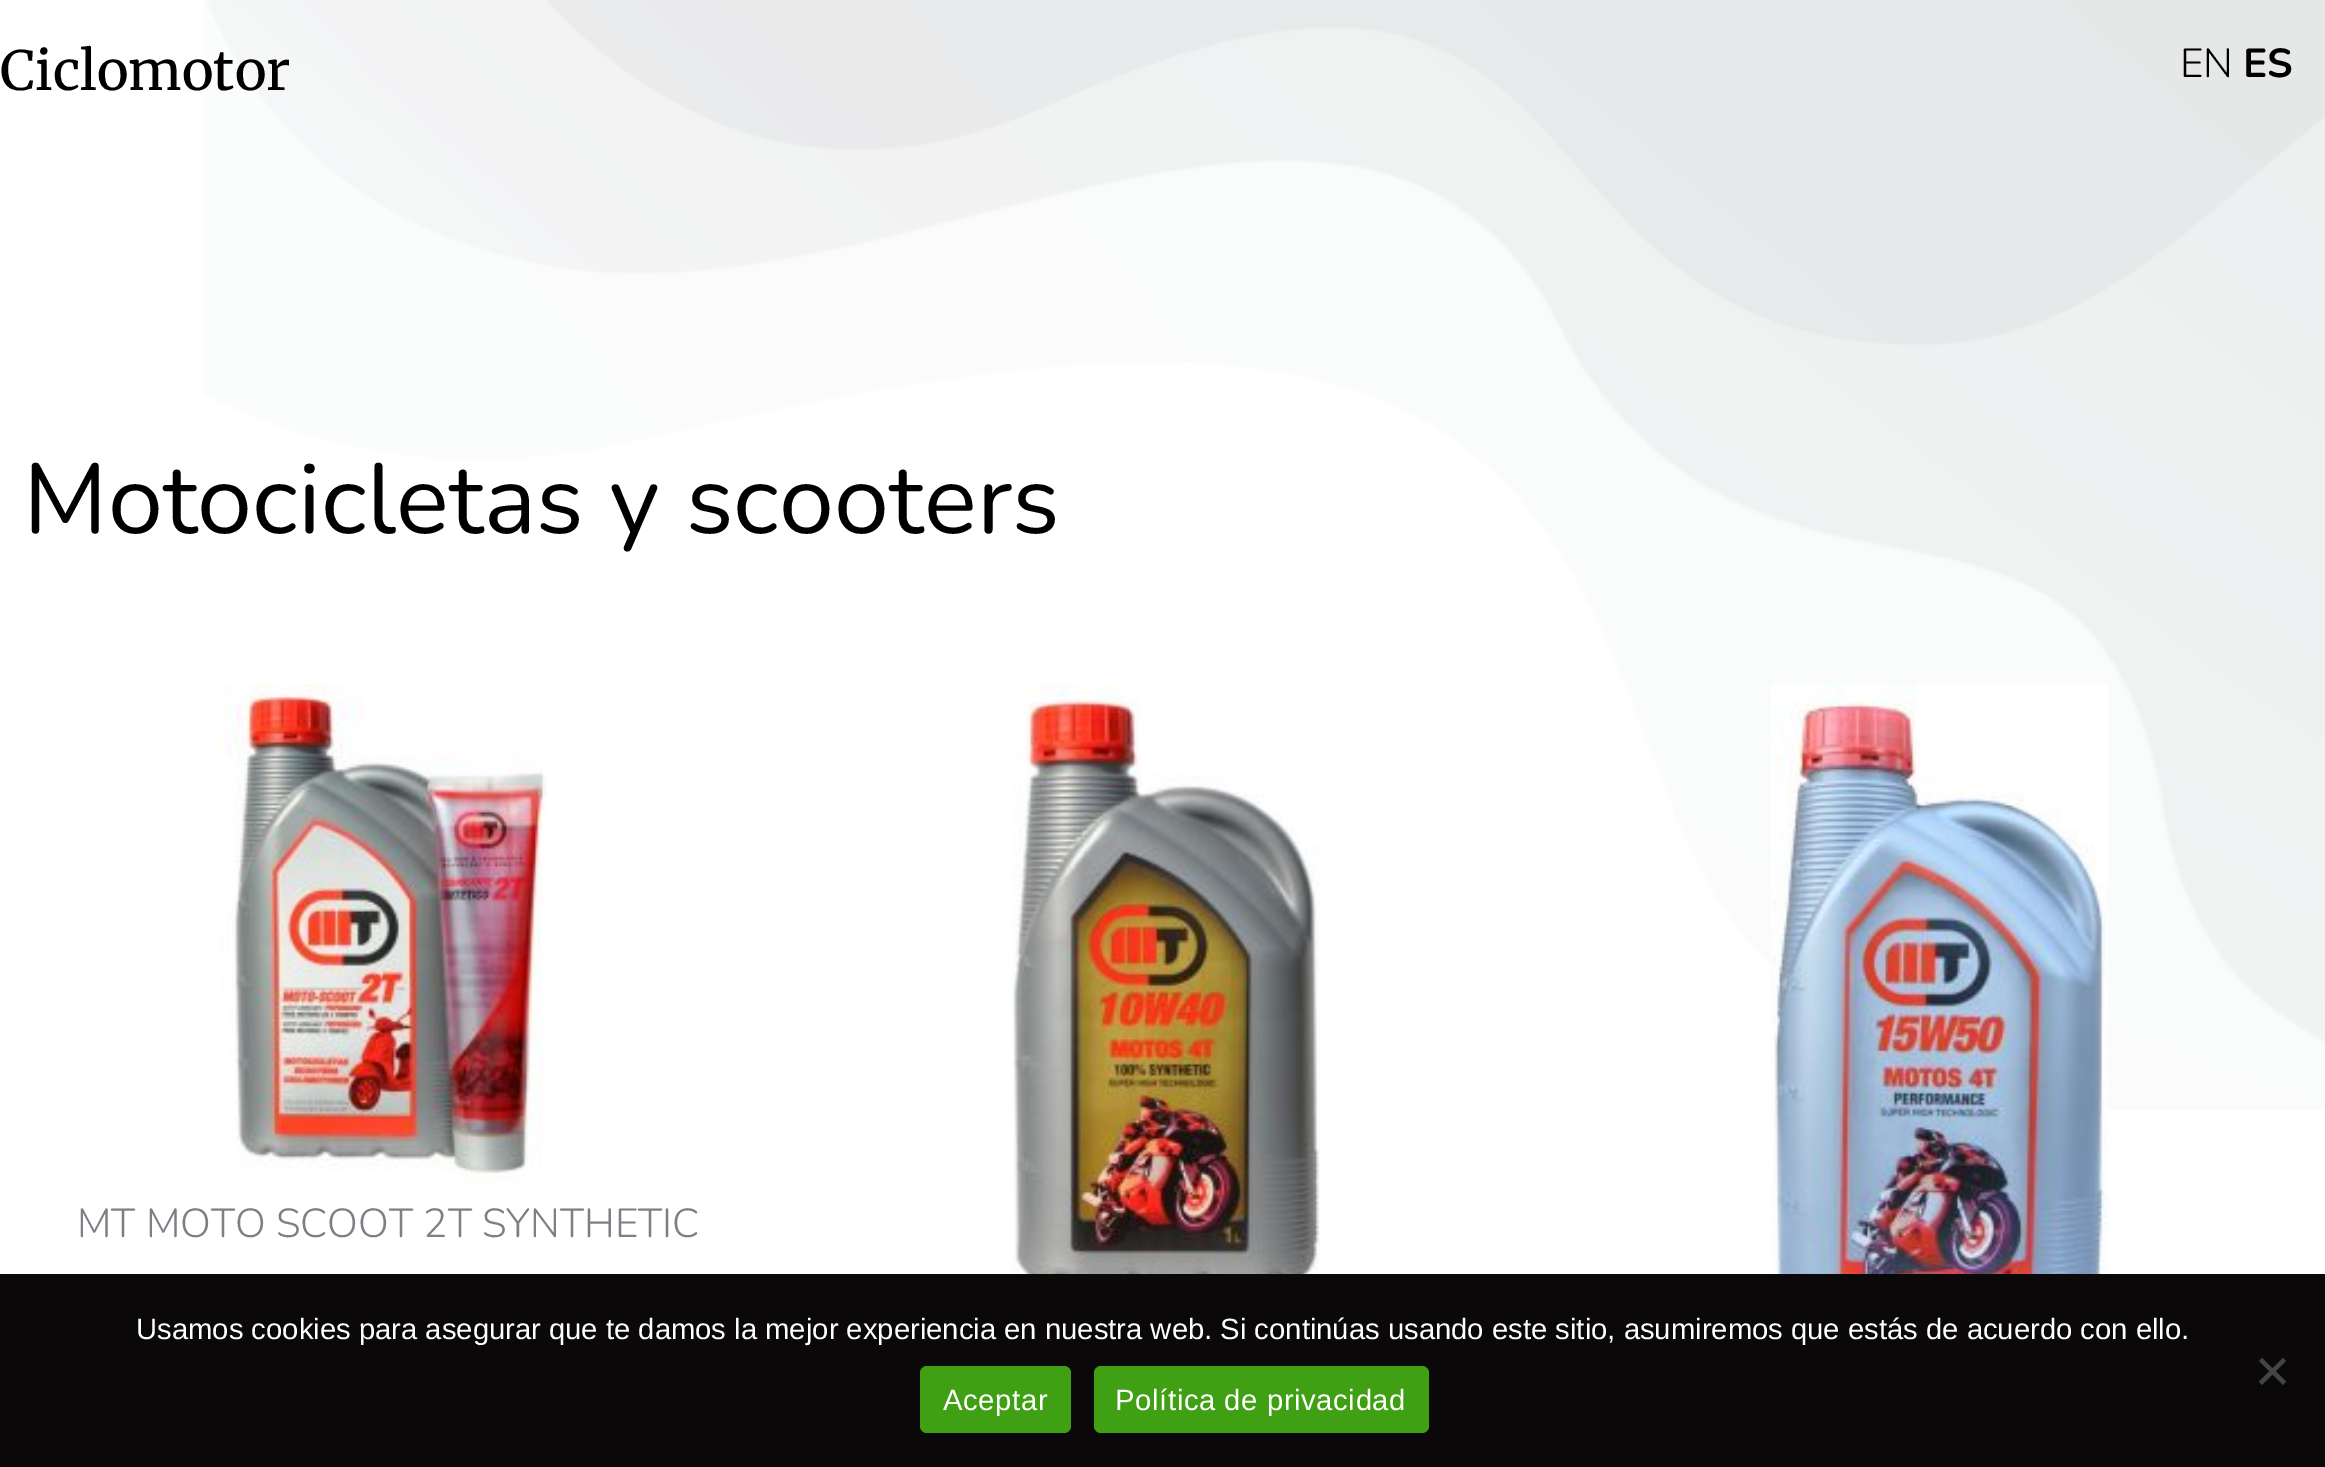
%!PS
<< /PageSize [2325 1467] >> setpagedevice
/rgb { 3 { 255 div 3 1 roll } repeat setrgbcolor } def
/font { [ exch dup neg 0 0 3 -1 roll 0 0 ] selectfont } def
/roundrect { 5 dict begin { /r /h /w /y /x } { exch def } forall
  x r add y moveto x w add y 2 copy h add r arct x w add y h add x 1 index r arct
  x y h add x y r arct x y 2 copy exch w add exch r arct closepath end } def
/picture { 5 dict begin { /h /w /y /x /name } { exch def } forall
  gsave x y translate w h scale
  w h 8 [w 0 0 h 0 0] name (r) file false 3 colorimage grestore end } def
0 1467 translate 1 -1 scale
4 setmiterlimit
255 255 255 rgb
0 0 2325 1467 rectfill
(img/1.rgb) 204 0 2121 1110 picture
(img/2.rgb) 218 684 329 501 picture
(img/3.rgb) 1012 684 308 590 picture
(img/4.rgb) 1771 684 337 590 picture
10 8 8 rgb
0 1274 2325 193 rectfill
69 68 68 rgb
2283 1358 moveto 2286 1361 lineto 2262 1385 lineto 2259 1381.5 lineto closepath fill
2259 1361 moveto 2262 1358 lineto 2286 1381.5 lineto 2283 1385 lineto closepath fill
64 160 19 rgb
920 1366 151 67 7 roundrect fill
1094 1366 335 67 7 roundrect fill
/Merriweather-Regular 54 font
0 0 0 rgb
0 90 moveto (Ciclomotor) show
/Nunito-Regular 99 font
23 533 moveto (Motocicletas y scooters) show
/Nunito-Light 40.5 font
124 127 131 rgb
77 1237 moveto (MT MOTO SCOOT 2T SYNTHETIC) show
0 0 0 rgb
2180 77 moveto (EN) show
/Nunito-Bold 40.5 font
2243 77 moveto (ES) show
/LiberationSans-Regular 29.25 font
255 255 255 rgb
136 1339 moveto (Usamos cookies para asegurar que te damos la mejor experiencia en nuestra web. Si continúas usando este sitio, asumiremos que estás de acuerdo con ello.) show
943 1410 moveto 0.6 0 (Aceptar) ashow
1115 1410 moveto 0.6 0 (Política de privacidad) ashow
showpage
